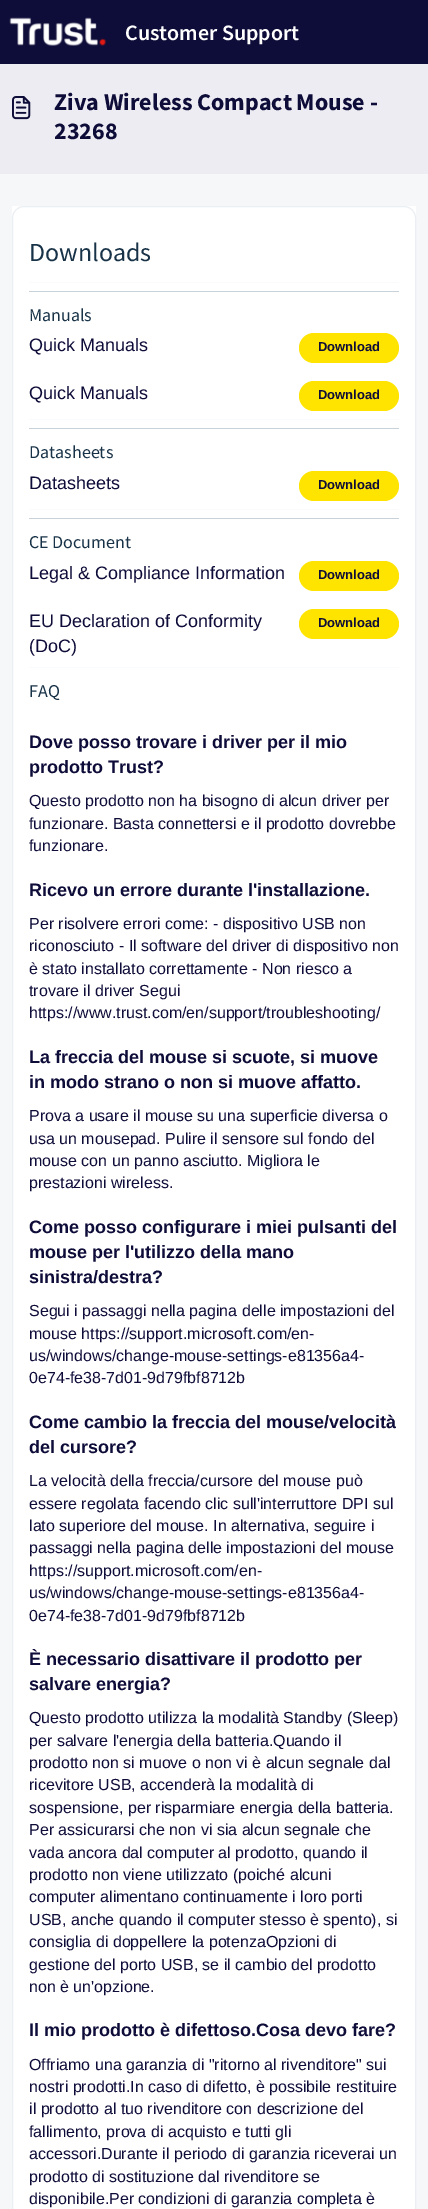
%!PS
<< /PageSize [428 2209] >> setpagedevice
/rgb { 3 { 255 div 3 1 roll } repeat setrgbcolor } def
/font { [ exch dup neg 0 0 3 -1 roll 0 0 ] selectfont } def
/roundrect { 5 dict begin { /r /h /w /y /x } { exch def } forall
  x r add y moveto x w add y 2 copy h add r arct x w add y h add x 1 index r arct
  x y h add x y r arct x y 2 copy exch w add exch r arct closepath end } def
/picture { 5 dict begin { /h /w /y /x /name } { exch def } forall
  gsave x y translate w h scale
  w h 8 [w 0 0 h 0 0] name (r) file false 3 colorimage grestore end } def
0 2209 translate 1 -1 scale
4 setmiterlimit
245 247 249 rgb
0 0 428 2209 rectfill
14 12 56 rgb
0 0 428 64 rectfill
235 239 243 rgb
0 64 428 1 rectfill
(img/1.rgb) 9 17 97 29 picture
237 236 243 rgb
0 65 428 109 rectfill
(img/2.rgb) 12 96 19 24 picture
255 255 255 rgb
12 206 404 2003 rectfill
235 239 243 rgb
12.5 206.5 403 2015 11.5 roundrect stroke
250 251 252 rgb
29 282 370 1 rectfill
201 210 217 rgb
29 291 370 1 rectfill
255 228 0 rgb
299 333 100 30 15 roundrect fill
299 381 100 30 15 roundrect fill
250 251 252 rgb
29 419 370 1 rectfill
201 210 217 rgb
29 428 370 1 rectfill
255 228 0 rgb
299 471 100 30 15 roundrect fill
250 251 252 rgb
29 509 370 1 rectfill
201 210 217 rgb
29 518 370 1 rectfill
255 228 0 rgb
299 561 100 30 15 roundrect fill
299 609 100 30 15 roundrect fill
250 251 252 rgb
29 667 370 1 rectfill
/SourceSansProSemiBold-SemiBold 22 font
255 255 255 rgb
125 40 moveto (Customer Support) show
/SourceSansPro-Bold 24 font
14 12 56 rgb
54 110 moveto (Ziva Wireless Compact Mouse -) show
54 139 moveto (23268) show
/SourceSansPro-Regular 26 font
24 50 71 rgb
29 261 moveto (Downloads) show
/SourceSansPro-Regular 18 font
29 321 moveto (Manuals) show
/LiberationSans-Regular 18 font
14 12 56 rgb
29 351 moveto (Quick Manuals) show
/LiberationSans-Bold 13 font
318 351 moveto (Download) show
/LiberationSans-Regular 18 font
29 399 moveto (Quick Manuals) show
/LiberationSans-Bold 13 font
318 399 moveto (Download) show
/SourceSansPro-Regular 18 font
24 50 71 rgb
29 458 moveto (Datasheets) show
/LiberationSans-Regular 18 font
14 12 56 rgb
29 489 moveto (Datasheets) show
/LiberationSans-Bold 13 font
318 489 moveto (Download) show
/SourceSansPro-Regular 18 font
24 50 71 rgb
29 548 moveto (CE Document) show
/LiberationSans-Regular 18 font
14 12 56 rgb
29 579 moveto (Legal & Compliance Information) show
/LiberationSans-Bold 13 font
318 579 moveto (Download) show
/LiberationSans-Regular 18 font
29 627 moveto (EU Declaration of Conformity) show
29 652 moveto (\(DoC\)) show
/LiberationSans-Bold 13 font
318 627 moveto (Download) show
/SourceSansPro-Regular 18 font
24 50 71 rgb
29 697 moveto (FAQ) show
/LiberationSans-Bold 18 font
14 12 56 rgb
29 748 moveto (Dove posso trovare i driver per il mio) show
29 773 moveto (prodotto Trust?) show
/LiberationSans-Regular 16 font
[
  [(Questo prodotto non ha bisogno di alcun driver per) 29 806]
  [(funzionare. Basta connettersi e il prodotto dovrebbe) 29 829]
  [(funzionare.) 29 851]
] { aload pop moveto show } forall
/LiberationSans-Bold 18 font
29 896 moveto (Ricevo un errore durante l'installazione.) show
/LiberationSans-Regular 16 font
[
  [(Per risolvere errori come: - dispositivo USB non) 29 929]
  [(riconosciuto - Il software del driver di dispositivo non) 29 951]
  [(è stato installato correttamente - Non riesco a) 29 974]
  [(trovare il driver Segui) 29 996]
  [(https://www.trust.com/en/support/troubleshooting/) 29 1018]
] { aload pop moveto show } forall
/LiberationSans-Bold 18 font
29 1063 moveto (La freccia del mouse si scuote, si muove) show
29 1088 moveto (in modo strano o non si muove affatto.) show
/LiberationSans-Regular 16 font
[
  [(Prova a usare il mouse su una superficie diversa o) 29 1121]
  [(usa un mousepad. Pulire il sensore sul fondo del) 29 1144]
  [(mouse con un panno asciutto. Migliora le) 29 1166]
  [(prestazioni wireless.) 29 1188]
] { aload pop moveto show } forall
/LiberationSans-Bold 18 font
[
  [(Come posso configurare i miei pulsanti del) 29 1233]
  [(mouse per l'utilizzo della mano) 29 1258]
  [(sinistra/destra?) 29 1283]
] { aload pop moveto show } forall
/LiberationSans-Regular 16 font
[
  [(Segui i passaggi nella pagina delle impostazioni del) 29 1316]
  [(mouse https://support.microsoft.com/en-) 29 1339]
  [(us/windows/change-mouse-settings-e81356a4-) 29 1361]
  [(0e74-fe38-7d01-9d79fbf8712b) 29 1383]
] { aload pop moveto show } forall
/LiberationSans-Bold 18 font
29 1428 moveto (Come cambio la freccia del mouse/velocità) show
29 1453 moveto (del cursore?) show
/LiberationSans-Regular 16 font
[
  [(La velocità della freccia/cursore del mouse può) 29 1486]
  [(essere regolata facendo clic sull'interruttore DPI sul) 29 1509]
  [(lato superiore del mouse. In alternativa, seguire i) 29 1531]
  [(passaggi nella pagina delle impostazioni del mouse) 29 1553]
  [(https://support.microsoft.com/en-) 29 1576]
  [(us/windows/change-mouse-settings-e81356a4-) 29 1598]
  [(0e74-fe38-7d01-9d79fbf8712b) 29 1621]
] { aload pop moveto show } forall
/LiberationSans-Bold 18 font
29 1665 moveto (È necessario disattivare il prodotto per) show
29 1690 moveto (salvare energia?) show
/LiberationSans-Regular 16 font
[
  [(Questo prodotto utilizza la modalità Standby \(Sleep\)) 29 1723]
  [(per salvare l'energia della batteria.Quando il) 29 1746]
  [(prodotto non si muove o non vi è alcun segnale dal) 29 1768]
  [(ricevitore USB, accenderà la modalità di) 29 1790]
  [(sospensione, per risparmiare energia della batteria.) 29 1813]
  [(Per assicurarsi che non vi sia alcun segnale che) 29 1835]
  [(vada ancora dal computer al prodotto, quando il) 29 1858]
  [(prodotto non viene utilizzato \(poiché alcuni) 29 1880]
  [(computer alimentano continuamente i loro porti) 29 1902]
  [(USB, anche quando il computer stesso è spento\), si) 29 1925]
  [(consiglia di doppellere la potenzaOpzioni di) 29 1947]
  [(gestione del porto USB, se il cambio del prodotto) 29 1970]
  [(non è un'opzione.) 29 1992]
] { aload pop moveto show } forall
/LiberationSans-Bold 18 font
29 2036 moveto (Il mio prodotto è difettoso.Cosa devo fare?) show
/LiberationSans-Regular 16 font
[
  [(Offriamo una garanzia di "ritorno al rivenditore" sui) 29 2070]
  [(nostri prodotti.In caso di difetto, è possibile restituire) 29 2092]
  [(il prodotto al tuo rivenditore con descrizione del) 29 2114]
  [(fallimento, prova di acquisto e tutti gli) 29 2137]
  [(accessori.Durante il periodo di garanzia riceverai un) 29 2159]
  [(prodotto di sostituzione dal rivenditore se) 29 2182]
  [(disponibile.Per condizioni di garanzia completa è) 29 2204]
] { aload pop moveto show } forall
showpage
